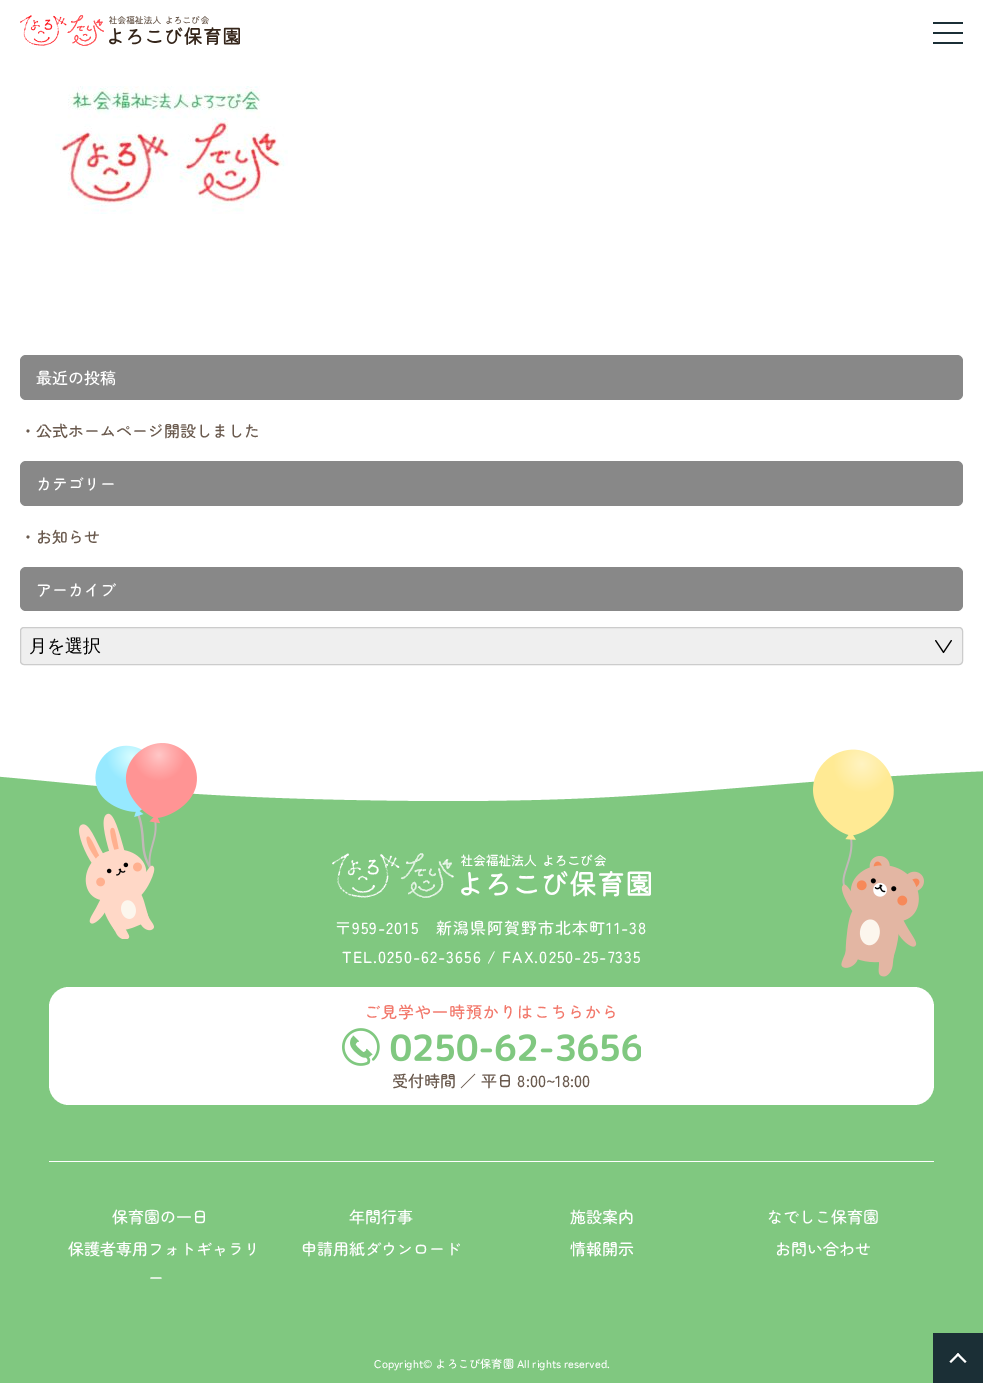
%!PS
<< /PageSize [983 1383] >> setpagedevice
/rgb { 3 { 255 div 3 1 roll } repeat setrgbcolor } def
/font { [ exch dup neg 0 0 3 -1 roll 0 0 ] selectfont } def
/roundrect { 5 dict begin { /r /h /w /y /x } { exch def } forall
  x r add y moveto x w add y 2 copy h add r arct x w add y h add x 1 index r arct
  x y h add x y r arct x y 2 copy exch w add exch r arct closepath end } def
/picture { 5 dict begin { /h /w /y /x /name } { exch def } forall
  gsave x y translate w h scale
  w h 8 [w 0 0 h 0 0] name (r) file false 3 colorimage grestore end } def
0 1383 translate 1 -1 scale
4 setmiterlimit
255 255 255 rgb
0 0 983 1383 rectfill
(img/1.rgb) 20 15 220 31 picture
[
  [933 22 30 2 27 47 54]
  [933 32 30 2 27 47 54]
  [933 42 30 2 27 47 54]
] { aload pop rgb rectfill } forall
(img/2.rgb) 55 86 233 128 picture
136 136 136 rgb
20 355 943 45 6 roundrect fill
20 461 943 45 6 roundrect fill
20 567 943 44 6 roundrect fill
239 239 239 rgb
20 627 943 38 4 roundrect fill
(img/3.rgb) 935 640 17 14 picture
204 204 204 rgb
20.5 627.5 942 37 3.5 roundrect stroke
128 200 128 rgb
0 837 983 506 rectfill
(img/6.rgb) 0 771 983 66 picture
(img/4.rgb) 79 743 118 196 picture
(img/5.rgb) 813 749 111 228 picture
255 255 255 rgb
49 1161 885 1 rectfill
(img/7.rgb) 332 853 319 45 picture
49 987 885 118 20 roundrect fill
(img/8.rgb) 342 1028 299 38 picture
128 200 128 rgb
0 1343 933 40 rectfill
27 47 54 rgb
933 1333 50 50 rectfill
255 255 255 rgb
949.5 1361.5 moveto 958 1353 lineto 959.5 1354.5 lineto 951 1363 lineto closepath fill
956.5 1354.5 moveto 958 1353 lineto 966.5 1361.5 lineto 965 1363 lineto closepath fill
/ZenMaruGothic-Medium 16 font
36 384 moveto (最近の投稿) show
106 90 78 rgb
20 437 moveto (・公式ホームページ開設しました) show
255 255 255 rgb
36 490 moveto (カテゴリー) show
106 90 78 rgb
20 543 moveto (・お知らせ) show
255 255 255 rgb
36 596 moveto (アーカイブ) show
/WenQuanYiZenHei-Medium 18 font
0 0 0 rgb
29 652 moveto (月を選択) show
/ZenMaruGothic-Medium 16 font
255 255 255 rgb
335 934 moveto 1 0 (〒959-2015　新潟県阿賀野市北本町11-38) ashow
342 963 moveto 1 0 (TEL.0250-62-3656 / FAX.0250-25-7335) ashow
242 120 107 rgb
364 1018 moveto 1 0 (ご見学や一時預かりはこちらから) ashow
106 90 78 rgb
392 1087 moveto (受付時間 ／ 平日 8:00~18:00) show
255 255 255 rgb
[
  [(保育園の一日) 112 1223]
  [(年間行事) 349 1223]
  [(施設案内) 570 1223]
  [(なでしこ保育園) 767 1223]
  [(保護者専用フォトギャラリ) 68 1255]
  [(ー) 148 1284]
  [(申請用紙ダウンロード) 301 1255]
  [(情報開示) 570 1255]
  [(お問い合わせ) 775 1255]
] { aload pop moveto show } forall
/ZenMaruGothic-Medium 11.2 font
374 1368 moveto (Copyright© よろこび保育園 All rights reserved.) show
showpage
